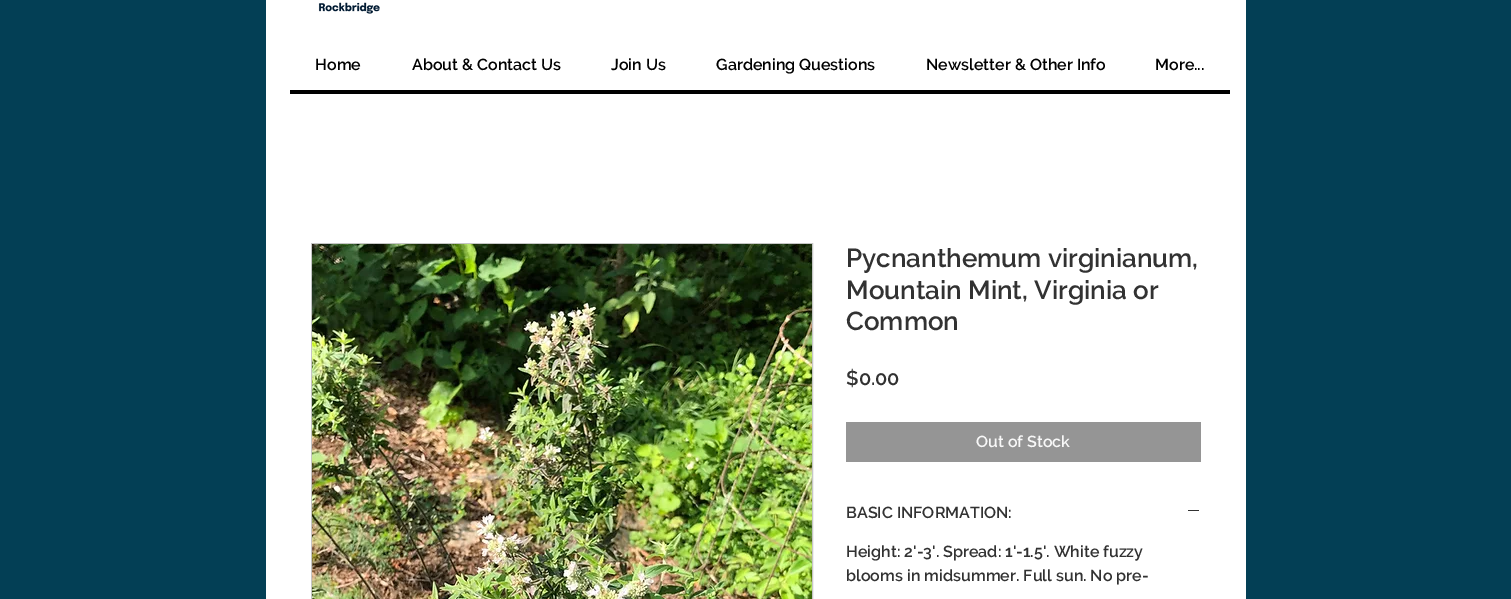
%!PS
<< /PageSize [1511 599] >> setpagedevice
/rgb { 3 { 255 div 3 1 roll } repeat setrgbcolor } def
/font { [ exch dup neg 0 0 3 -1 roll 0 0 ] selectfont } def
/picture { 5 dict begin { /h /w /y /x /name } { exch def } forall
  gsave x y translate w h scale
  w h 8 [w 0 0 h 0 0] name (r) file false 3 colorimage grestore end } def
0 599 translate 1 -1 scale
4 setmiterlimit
3 63 85 rgb
0 0 1511 599 rectfill
255 255 255 rgb
266 0 980 599 rectfill
(img/1.rgb) 318 2 62 12 picture
0 0 0 rgb
290 90 940 4 rectfill
198 198 198 rgb
311.5 243.5 501 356 rectstroke
(img/2.rgb) 312 244 500 355 picture
149 149 149 rgb
846 422 355 40 rectfill
50 50 50 rgb
1188 510 11 1 rectfill
/Raleway-SemiBold 16 font
0 0 0 rgb
[
  [(Home) 315 70]
  [(About & Contact Us) 412 70]
  [(Join Us) 611 70]
  [(Gardening Questions) 716 70]
  [(Newsletter & Other Info) 926 70]
  [(More...) 1155 70]
] { aload pop moveto show } forall
/Raleway-SemiBold 26 font
50 50 50 rgb
[
  [(Pycnanthemum virginianum,) 846 267]
  [(Mountain Mint, Virginia or) 846 299]
  [(Common) 846 330]
] { aload pop moveto show } forall
/Raleway-SemiBold 20 font
846 385 moveto ($0.00) show
/Raleway-SemiBold 16 font
248 248 248 rgb
976 447 moveto (Out of Stock) show
50 50 50 rgb
[
  [(BASIC INFORMATION:) 846 518]
  [(Height: 2'-3'. Spread: 1'-1.5'. White fuzzy) 846 557]
  [(blooms in midsummer. Full sun. No pre-) 846 581]
] { aload pop moveto show } forall
showpage
